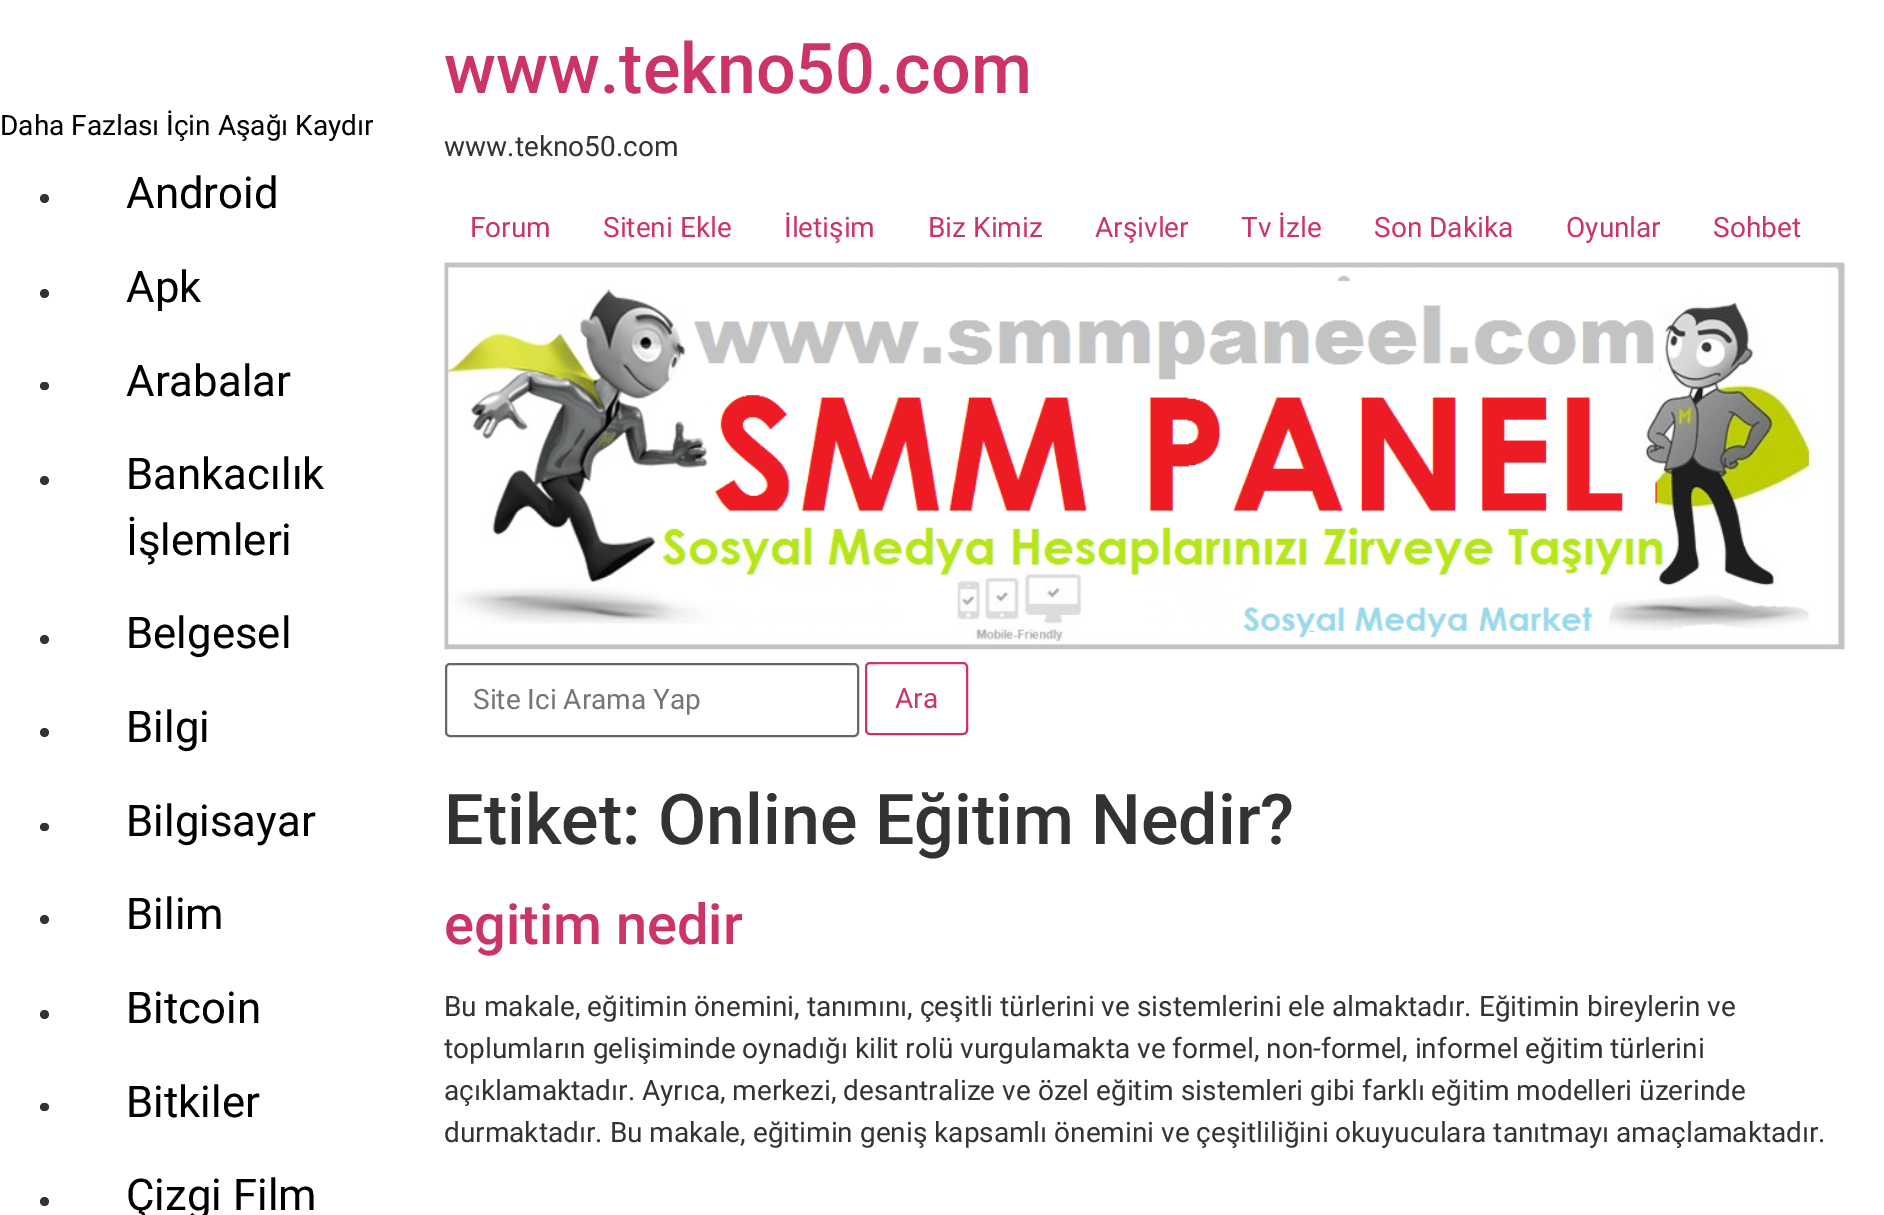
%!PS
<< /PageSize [1884 1215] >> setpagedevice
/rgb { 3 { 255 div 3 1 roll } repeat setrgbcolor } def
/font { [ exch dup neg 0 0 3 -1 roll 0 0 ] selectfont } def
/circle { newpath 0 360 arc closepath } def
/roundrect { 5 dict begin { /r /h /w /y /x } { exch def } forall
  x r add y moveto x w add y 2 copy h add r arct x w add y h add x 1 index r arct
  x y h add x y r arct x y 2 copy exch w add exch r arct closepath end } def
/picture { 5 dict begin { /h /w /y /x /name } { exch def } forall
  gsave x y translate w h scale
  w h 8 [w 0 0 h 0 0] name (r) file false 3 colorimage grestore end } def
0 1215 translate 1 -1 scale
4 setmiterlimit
255 255 255 rgb
0 0 1884 1215 rectfill
51 51 51 rgb
44.5 198.5 4.5 circle fill
44.5 293.5 4.5 circle fill
40 382 9 8 4 roundrect fill
44.5 480.5 4.5 circle fill
44.5 639.5 4.5 circle fill
44.5 732.5 4.5 circle fill
40 823 9 8 4 roundrect fill
44.5 919.5 4.5 circle fill
44.5 1014.5 4.5 circle fill
40 1103 9 8 4 roundrect fill
44.5 1201.5 4.5 circle fill
(img/1.rgb) 444 262 1401 388 picture
102 102 102 rgb
2 setlinewidth
446 664 412 72 4 roundrect stroke
204 51 102 rgb
866 663 101 71 4 roundrect stroke
/Roboto-Regular 28 font
0 0 0 rgb
0 135 moveto (Daha Fazlası İçin Aşağı Kaydır) show
/Roboto-Regular 43.75 font
[
  [(Android) 126 208]
  [(Apk) 126 302]
  [(Arabalar) 126 396]
  [(Bankacılık) 126 489]
  [(İşlemleri) 126 555]
  [(Belgesel) 126 648]
  [(Bilgi) 126 742]
  [(Bilgisayar) 126 836]
  [(Bilim) 126 929]
  [(Bitcoin) 126 1023]
  [(Bitkiler) 126 1117]
  [(Çizgi Film) 126 1210]
] { aload pop moveto show } forall
/Roboto-Medium 70 font
204 51 102 rgb
444 93 moveto (www.tekno50.com) show
/Roboto-Regular 28 font
51 51 51 rgb
444 156 moveto (www.tekno50.com) show
204 51 102 rgb
[
  [(Forum) 470 237]
  [(Siteni Ekle) 603 237]
  [(İletişim) 784 237]
  [(Biz Kimiz) 928 237]
  [(Arşivler) 1095 237]
  [(Tv İzle) 1241 237]
  [(Son Dakika) 1374 237]
  [(Oyunlar) 1566 237]
  [(Sohbet) 1713 237]
] { aload pop moveto show } forall
117 117 117 rgb
473 709 moveto (Site Ici Arama Yap) show
204 51 102 rgb
895 708 moveto (Ara) show
/Roboto-Medium 70 font
51 51 51 rgb
444 844 moveto (Etiket: Online Eğitim Nedir?) show
/Roboto-Medium 56 font
204 51 102 rgb
444 944 moveto (egitim nedir) show
/Roboto-Regular 28 font
51 51 51 rgb
[
  [(Bu makale, eğitimin önemini, tanımını, çeşitli türlerini ve sistemlerini ele almaktadır. Eğitimin bireylerin ve) 444 1016]
  [(toplumların gelişiminde oynadığı kilit rolü vurgulamakta ve formel, non-formel, informel eğitim türlerini) 444 1058]
  [(açıklamaktadır. Ayrıca, merkezi, desantralize ve özel eğitim sistemleri gibi farklı eğitim modelleri üzerinde) 444 1100]
  [(durmaktadır. Bu makale, eğitimin geniş kapsamlı önemini ve çeşitliliğini okuyuculara tanıtmayı amaçlamaktadır.) 444 1142]
] { aload pop moveto show } forall
showpage
